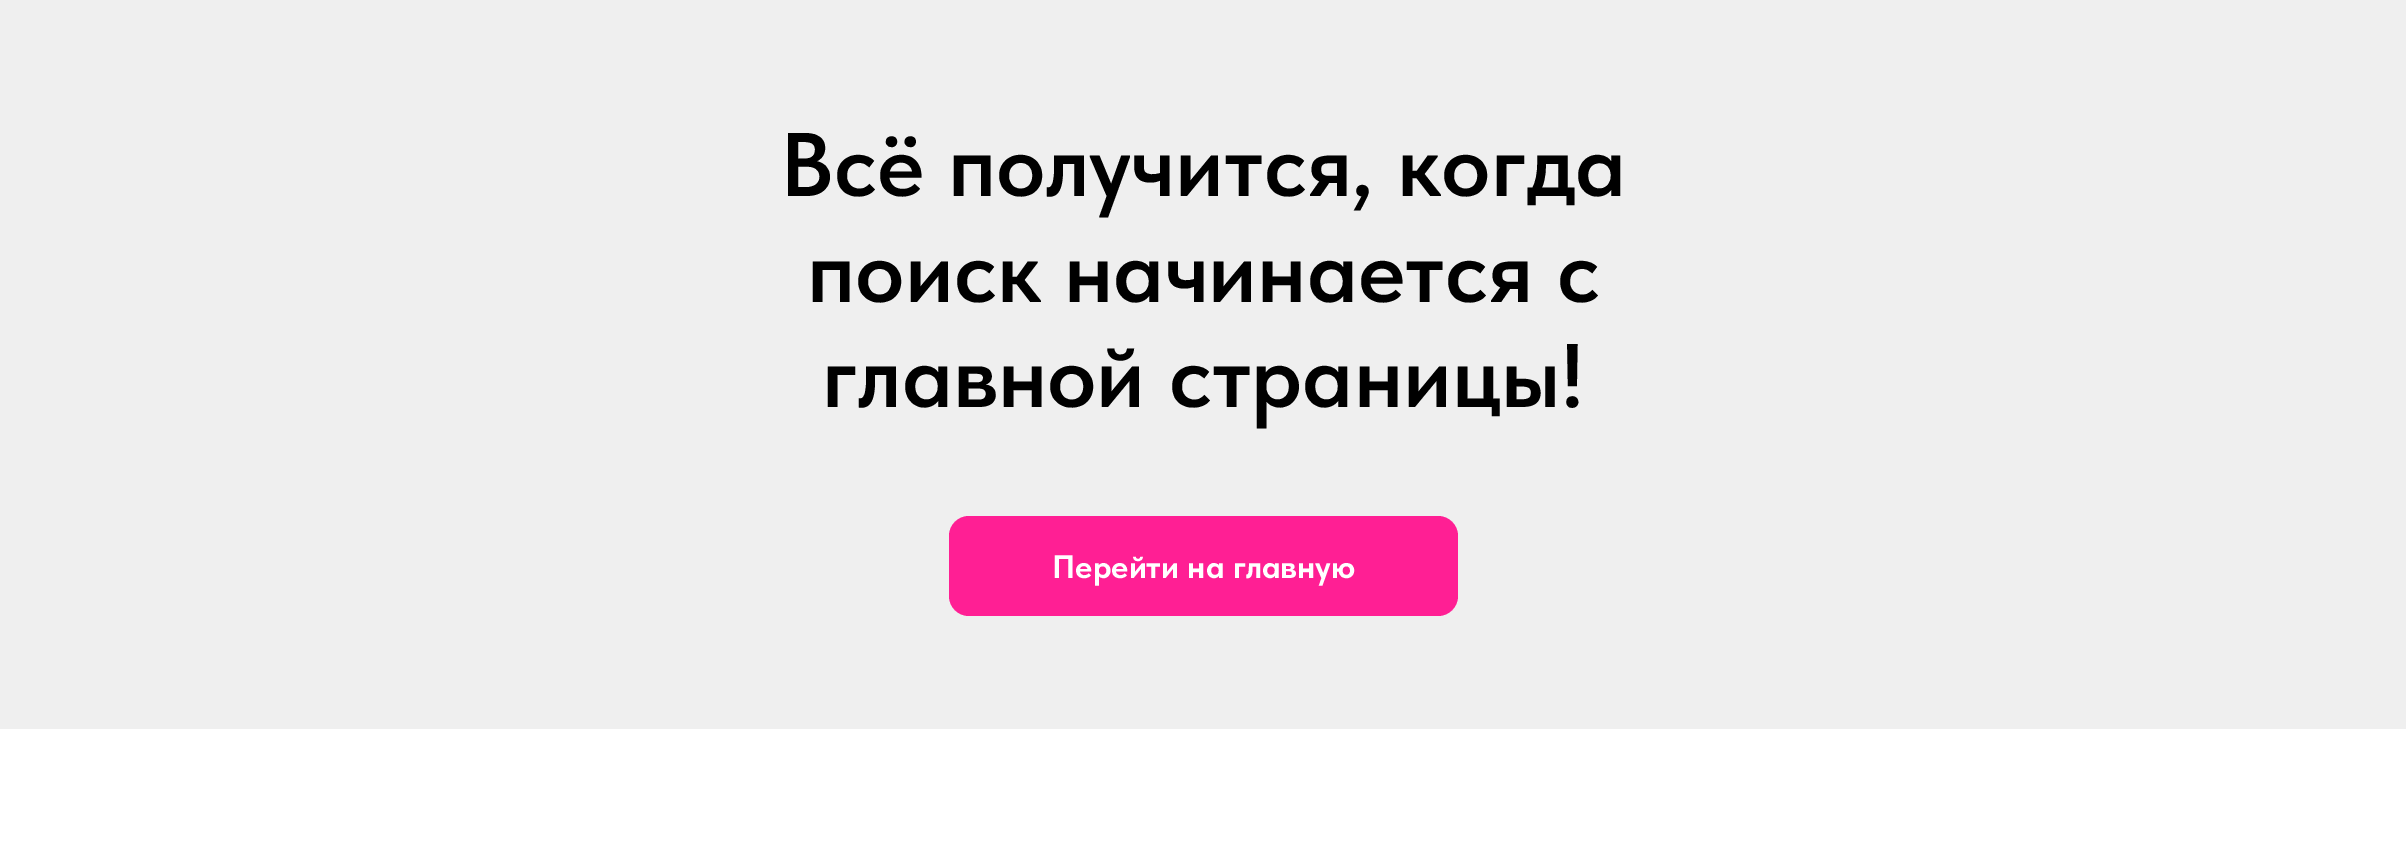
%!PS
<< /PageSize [2406 844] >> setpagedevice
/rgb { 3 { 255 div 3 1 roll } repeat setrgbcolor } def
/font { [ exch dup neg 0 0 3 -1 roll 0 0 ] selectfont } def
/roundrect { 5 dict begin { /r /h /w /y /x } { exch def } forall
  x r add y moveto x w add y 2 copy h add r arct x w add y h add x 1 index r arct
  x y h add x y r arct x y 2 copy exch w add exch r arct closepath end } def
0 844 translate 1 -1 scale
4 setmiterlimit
255 255 255 rgb
0 0 2406 844 rectfill
239 239 239 rgb
0 0 2406 729 rectfill
255 31 148 rgb
949 516 509 100 20 roundrect fill
/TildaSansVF-SemiBold 90 font
0 0 0 rgb
[
  [(Всё получится, когда) 780 196]
  [(поиск начинается с) 807 302]
  [(главной страницы!) 822 407]
] { aload pop moveto show } forall
/TildaSansVF-Bold 32.5 font
255 255 255 rgb
1052 578 moveto (Перейти на главную) show
showpage
